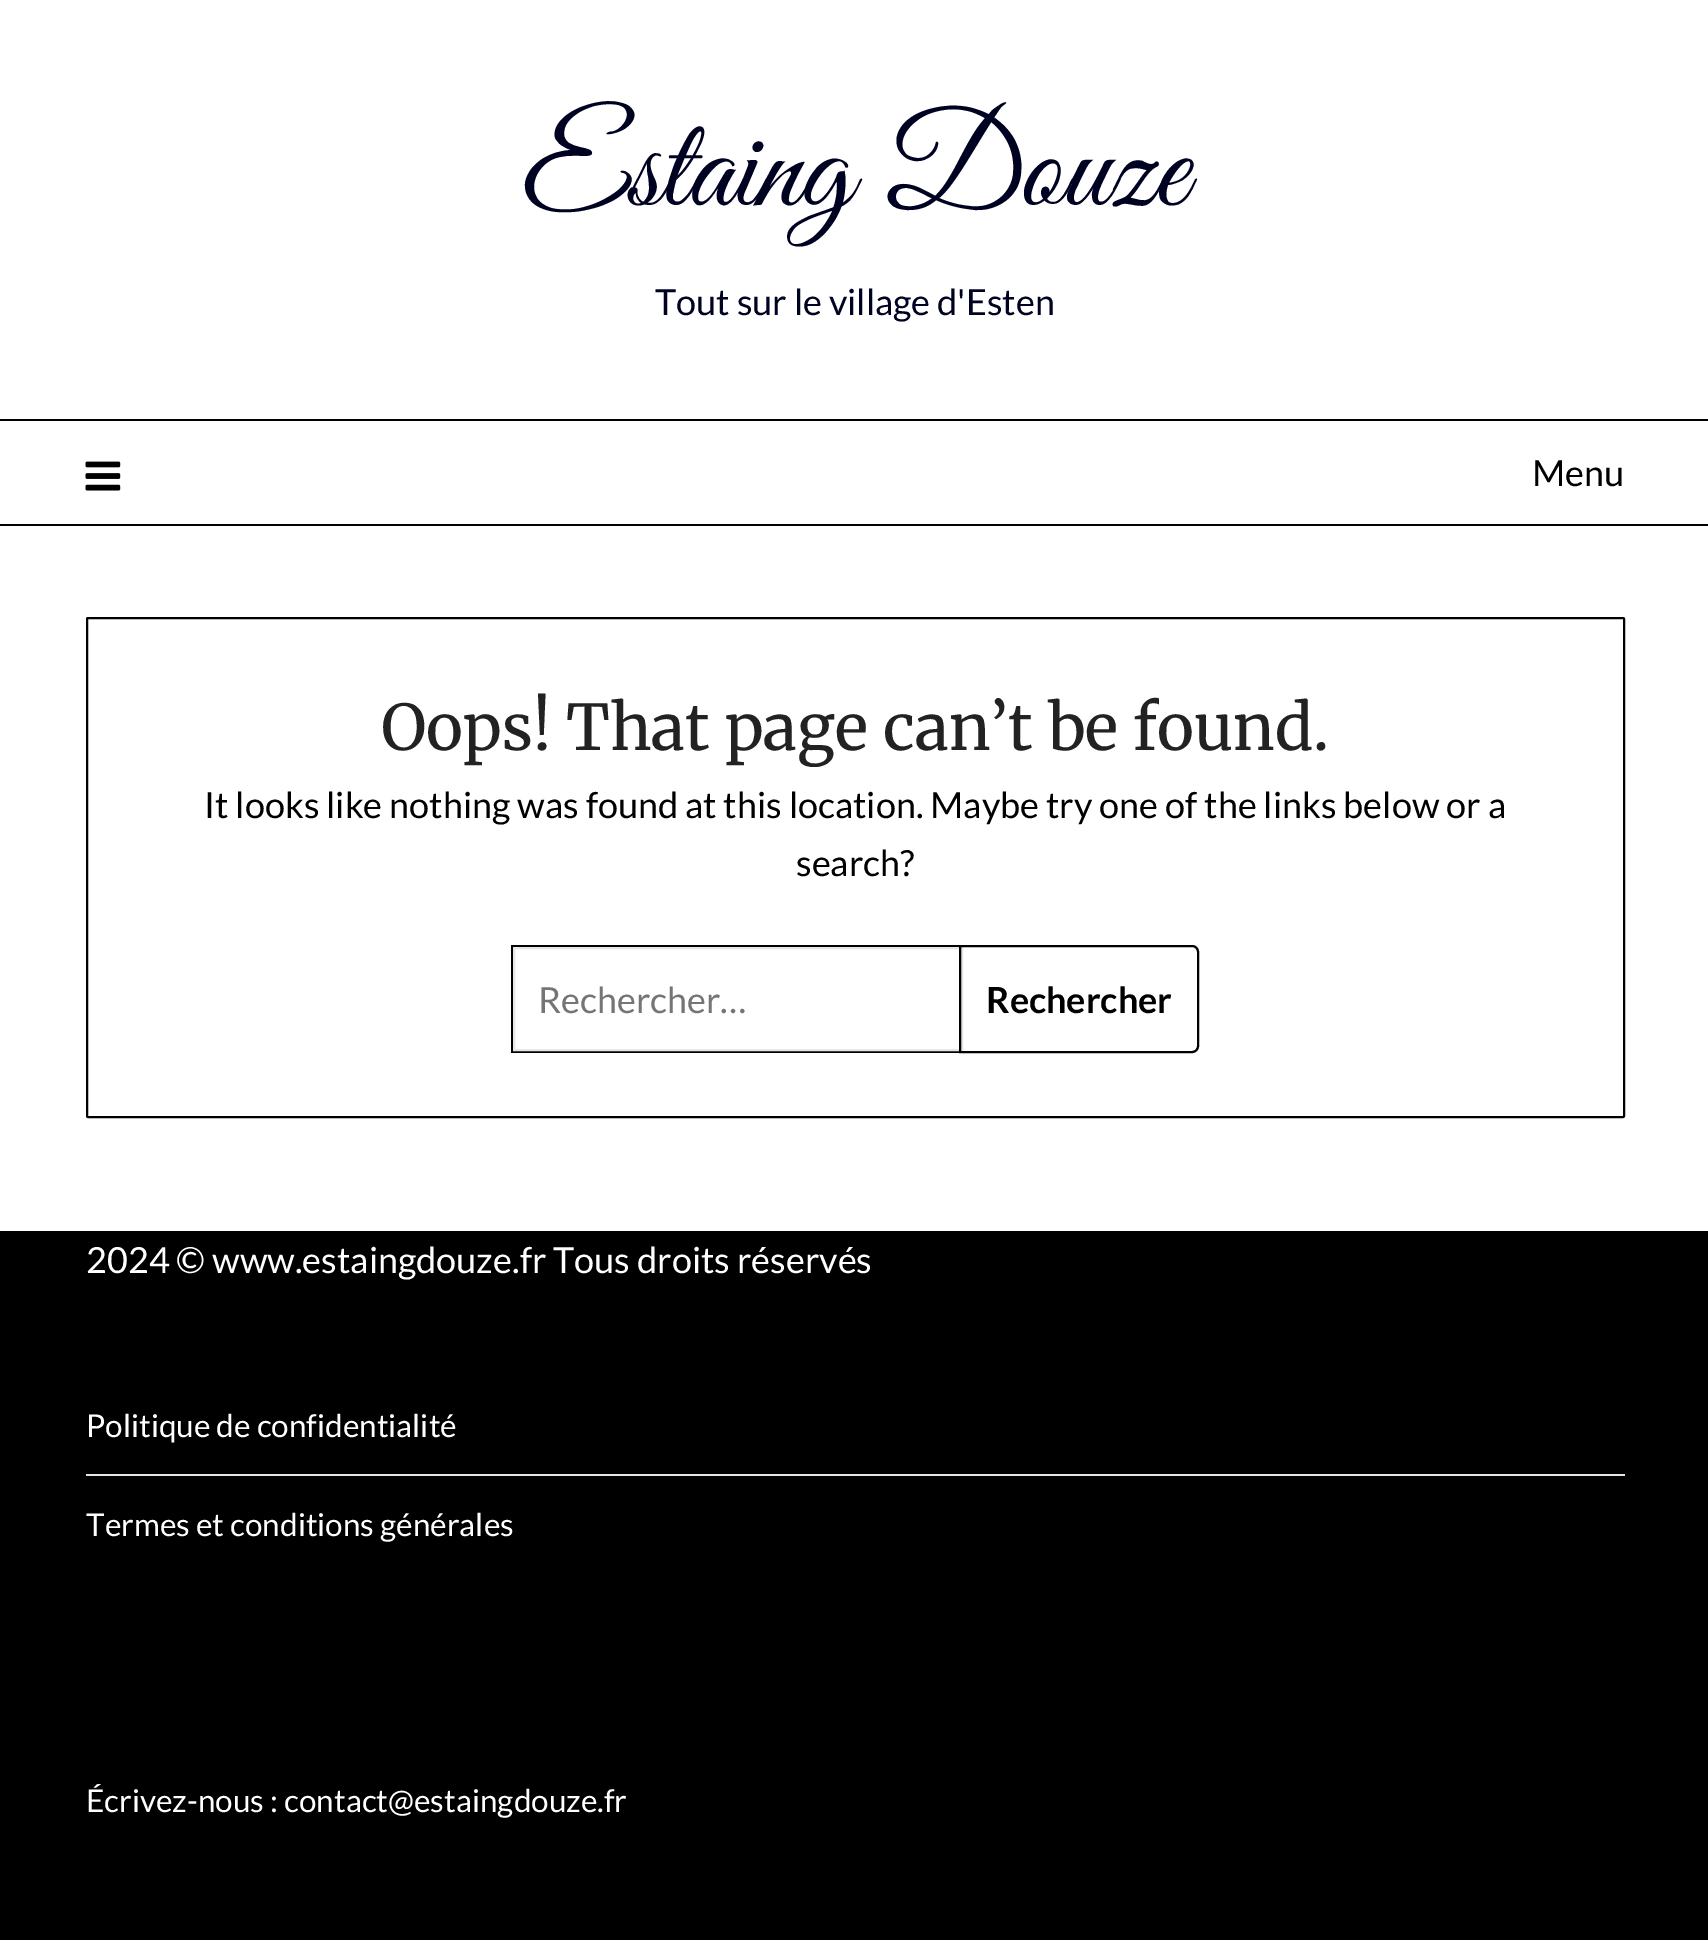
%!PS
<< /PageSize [1708 1941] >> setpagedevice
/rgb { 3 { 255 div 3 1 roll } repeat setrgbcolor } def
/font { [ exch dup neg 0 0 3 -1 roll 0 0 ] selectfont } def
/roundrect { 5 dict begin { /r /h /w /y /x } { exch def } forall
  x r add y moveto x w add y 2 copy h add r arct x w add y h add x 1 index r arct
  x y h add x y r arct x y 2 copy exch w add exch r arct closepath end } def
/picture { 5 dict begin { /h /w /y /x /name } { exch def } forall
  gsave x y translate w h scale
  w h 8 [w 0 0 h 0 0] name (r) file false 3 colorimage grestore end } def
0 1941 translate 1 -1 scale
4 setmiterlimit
255 255 255 rgb
0 0 1708 1941 rectfill
0 0 0 rgb
0 419 1708 2 rectfill
0 524 1708 2 rectfill
(img/1.rgb) 85 461 36 30 picture
2 setlinewidth
87 618 1537 499 1 roundrect stroke
[
  [511 945 452 2 0 0 0]
  [511 1051 452 2 0 0 0]
  [511 945 2 108 0 0 0]
] { aload pop rgb rectfill } forall
229 230 233 rgb
514 948 448 102 rectstroke
0 0 0 rgb
960 946 moveto 1192 946 lineto 1195.5 946 1198 948.5 1198 952 curveto 1198 1046 lineto 1198 1049.5 1195.5 1052 1192 1052 curveto 960 1052 lineto closepath stroke
0 1231 1708 709 rectfill
230 230 230 rgb
86 1474 1539 2 rectfill
/GreatVibes-Regular 130.5 font
0 2 34 rgb
522 205 moveto (Estaing Douze) show
/Lato-Regular 36 font
655 315 moveto (Tout sur le village d'Esten) show
0 0 0 rgb
1532 486 moveto (Menu) show
/Merriweather-Regular 63 font
34 34 34 rgb
381 750 moveto (Oops! That page can’t be found.) show
/Lato-Regular 36 font
0 0 0 rgb
204 818 moveto (It looks like nothing was found at this location. Maybe try one of the links below or a) show
796 876 moveto (search?) show
117 117 117 rgb
538 1013 moveto (Rechercher…) show
/Lato-Bold 36 font
0 0 0 rgb
986 1013 moveto (Rechercher) show
/Lato-Regular 36 font
255 255 255 rgb
86 1273 moveto (2024 © www.estaingdouze.fr Tous droits réservés) show
/Lato-Regular 31.5 font
[
  [(Politique de confidentialité) 86 1437]
  [(Termes et conditions générales) 86 1536]
  [(Écrivez-nous : contact@estaingdouze.fr) 86 1812]
] { aload pop moveto show } forall
showpage
